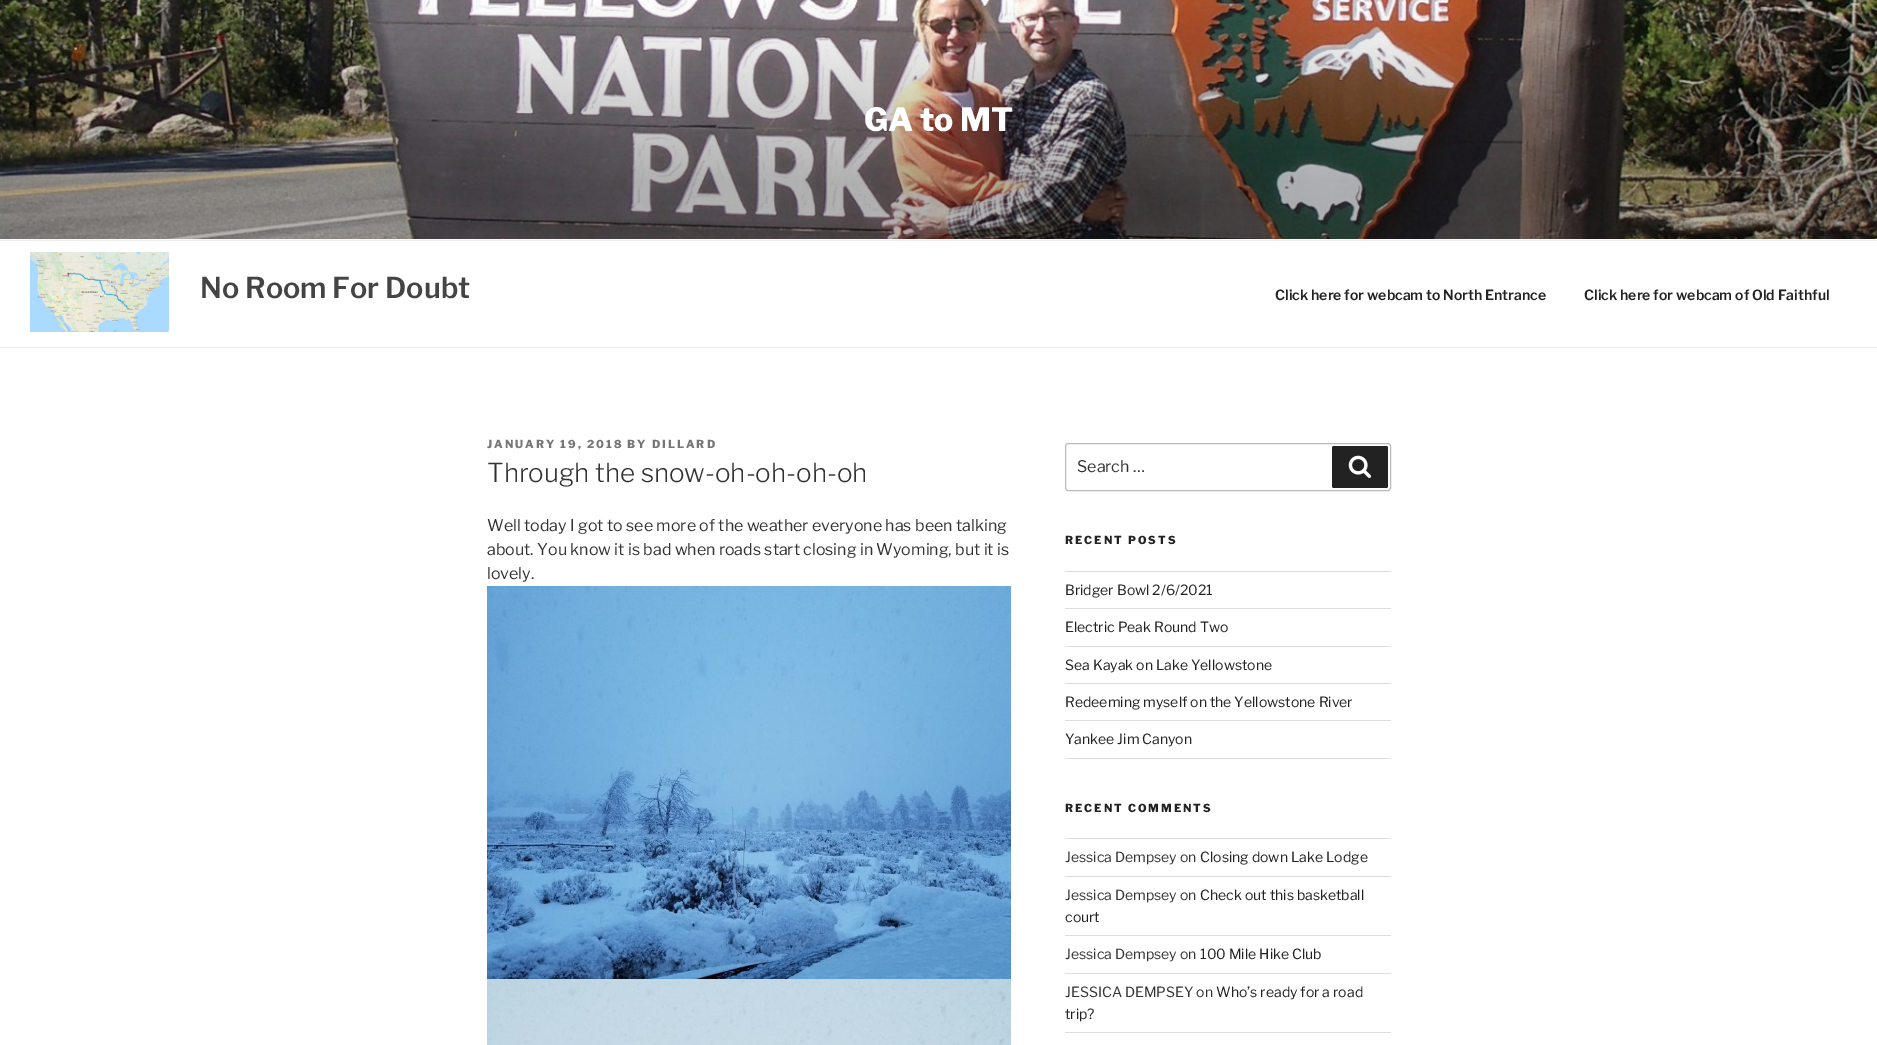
%!PS
<< /PageSize [1877 1045] >> setpagedevice
/rgb { 3 { 255 div 3 1 roll } repeat setrgbcolor } def
/font { [ exch dup neg 0 0 3 -1 roll 0 0 ] selectfont } def
/roundrect { 5 dict begin { /r /h /w /y /x } { exch def } forall
  x r add y moveto x w add y 2 copy h add r arct x w add y h add x 1 index r arct
  x y h add x y r arct x y 2 copy exch w add exch r arct closepath end } def
/picture { 5 dict begin { /h /w /y /x /name } { exch def } forall
  gsave x y translate w h scale
  w h 8 [w 0 0 h 0 0] name (r) file false 3 colorimage grestore end } def
0 1045 translate 1 -1 scale
4 setmiterlimit
255 255 255 rgb
0 0 1877 1045 rectfill
250 250 250 rgb
0 239 1877 1 rectfill
(img/1.rgb) 0 0 1877 239 picture
238 238 238 rgb
0 240 1877 1 rectfill
0 347 1877 1 rectfill
(img/2.rgb) 30 252 139 80 picture
(img/3.rgb) 487 586 524 393 picture
(img/4.rgb) 487 979 524 66 picture
187 187 187 rgb
1065.5 443.5 325 47 2.5 roundrect stroke
34 34 34 rgb
1332 446 56 42 2 roundrect fill
(img/5.rgb) 1348 455 23 23 picture
[
  [1065 571 326 1 221 221 221]
  [1065 608 326 1 221 221 221]
  [1065 646 326 1 221 221 221]
  [1065 683 326 1 221 221 221]
  [1065 720 326 1 221 221 221]
  [1065 758 326 1 221 221 221]
  [1065 838 326 1 221 221 221]
  [1065 876 326 1 221 221 221]
  [1065 935 326 1 221 221 221]
  [1065 973 326 1 221 221 221]
  [1065 1032 326 1 221 221 221]
] { aload pop rgb rectfill } forall
/LibreFranklin-ExtraBold 32 font
255 255 255 rgb
864 131 moveto (GA to MT) show
/LibreFranklin-SemiBold 28.75 font
68 68 68 rgb
200 298 moveto (No Room For Doubt) show
/LibreFranklin-SemiBold 14 font
34 34 34 rgb
1275 300 moveto (Click here for webcam to North Entrance) show
1584 300 moveto (Click here for webcam of Old Faithful) show
/LibreFranklin-ExtraBold 11 font
118 118 118 rgb
487 448 moveto 2 0 (JANUARY 19, 2018 BY DILLARD) ashow
/LibreFranklin-Light 26 font
51 51 51 rgb
487 482 moveto (Through the snow-oh-oh-oh-oh) show
/LibreFranklin-Regular 16 font
[
  [(Well today I got to see more of the weather everyone has been talking) 487 531]
  [(about. You know it is bad when roads start closing in Wyoming, but it is) 487 555]
  [(lovely.) 487 579]
  [(Search …) 1077 472]
] { aload pop moveto show } forall
/LibreFranklin-ExtraBold 11 font
34 34 34 rgb
1065 544 moveto 2 0 (RECENT POSTS) ashow
/LibreFranklin-Regular 14 font
[
  [(Bridger Bowl 2/6/2021) 1065 595]
  [(Electric Peak Round Two) 1065 632]
  [(Sea Kayak on Lake Yellowstone) 1065 670]
  [(Redeeming myself on the Yellowstone River) 1065 707]
  [(Yankee Jim Canyon) 1065 744]
] { aload pop moveto show } forall
/LibreFranklin-ExtraBold 11 font
1065 812 moveto 2 0 (RECENT COMMENTS) ashow
/LibreFranklin-Regular 14 font
51 51 51 rgb
1065 862 moveto (Jessica Dempsey on) show
34 34 34 rgb
1200 862 moveto (Closing down Lake Lodge) show
51 51 51 rgb
1065 900 moveto (Jessica Dempsey on) show
34 34 34 rgb
1200 900 moveto (Check out this basketball) show
1065 922 moveto (court) show
51 51 51 rgb
1065 959 moveto (Jessica Dempsey on) show
34 34 34 rgb
1200 959 moveto (100 Mile Hike Club) show
51 51 51 rgb
1065 997 moveto (JESSICA DEMPSEY on) show
34 34 34 rgb
1216 997 moveto (Who’s ready for a road) show
1065 1019 moveto (trip?) show
showpage
